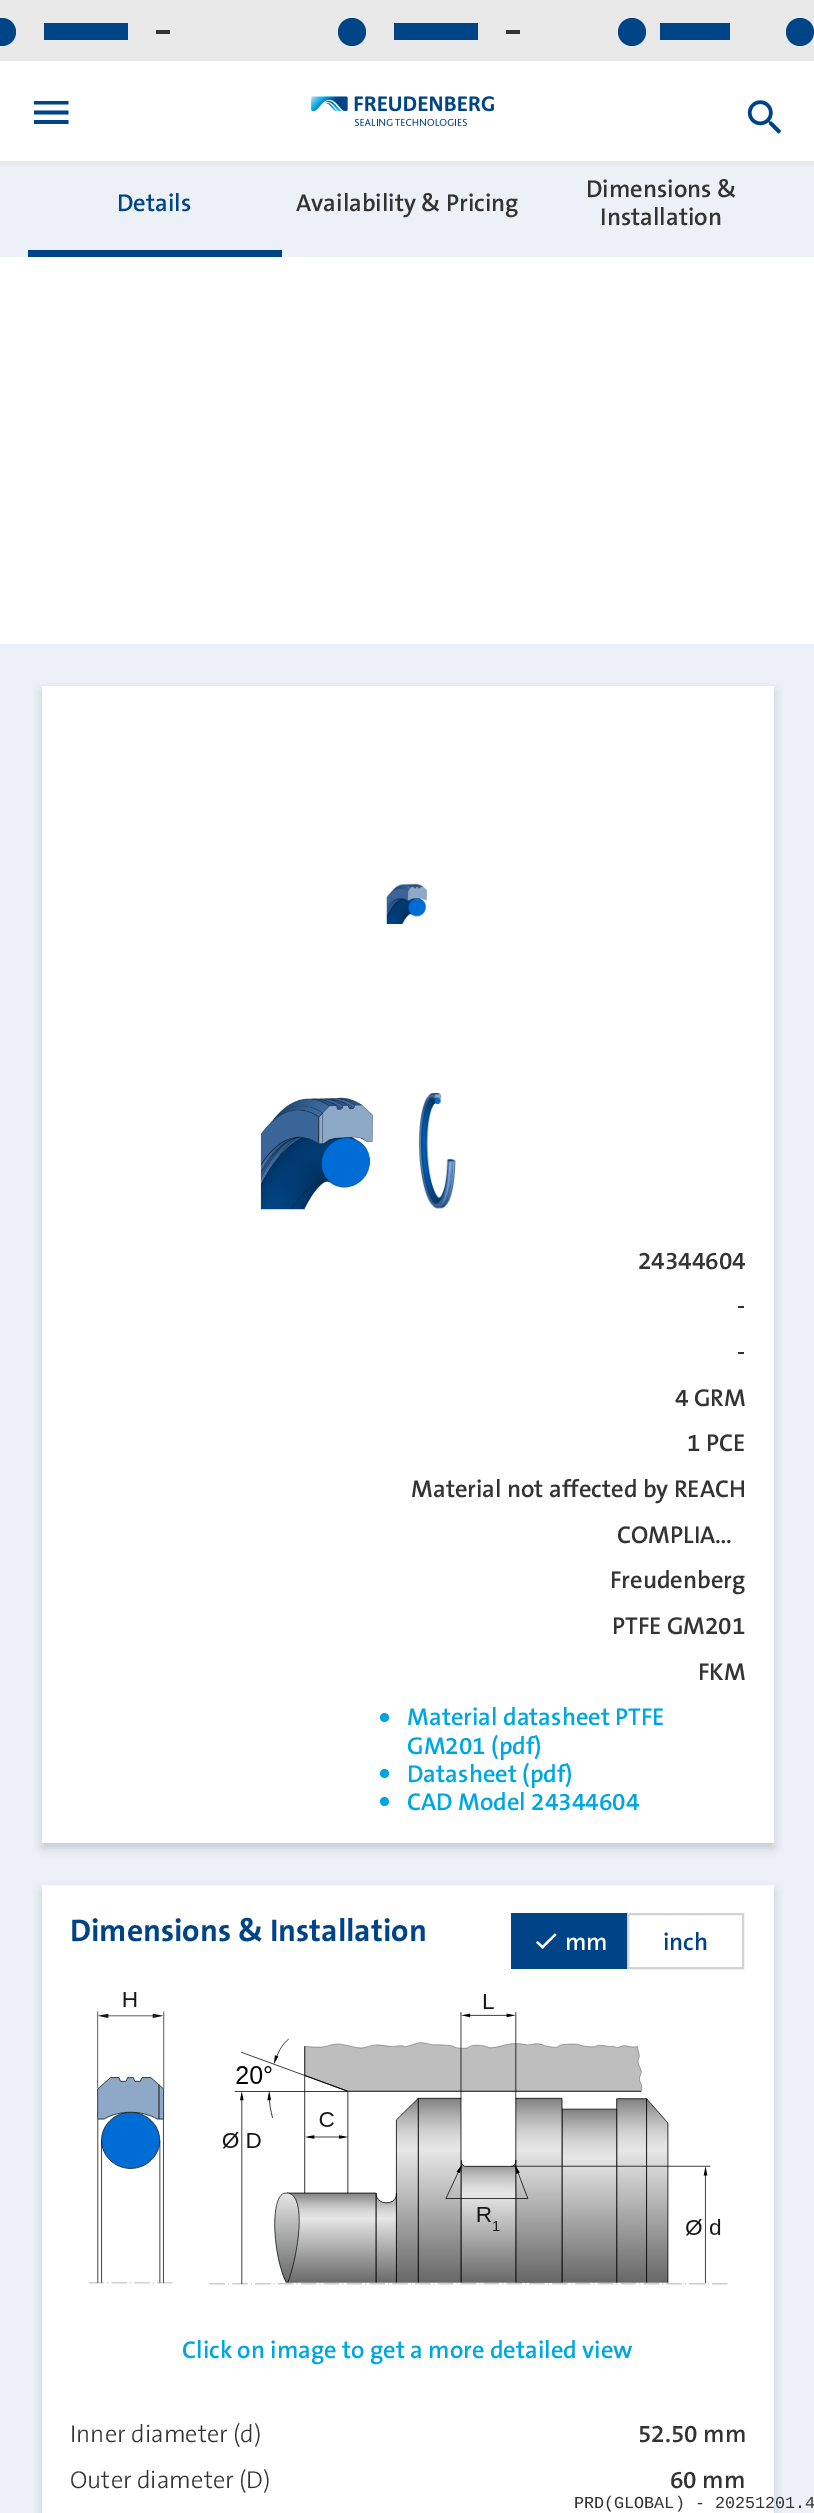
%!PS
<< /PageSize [814 2513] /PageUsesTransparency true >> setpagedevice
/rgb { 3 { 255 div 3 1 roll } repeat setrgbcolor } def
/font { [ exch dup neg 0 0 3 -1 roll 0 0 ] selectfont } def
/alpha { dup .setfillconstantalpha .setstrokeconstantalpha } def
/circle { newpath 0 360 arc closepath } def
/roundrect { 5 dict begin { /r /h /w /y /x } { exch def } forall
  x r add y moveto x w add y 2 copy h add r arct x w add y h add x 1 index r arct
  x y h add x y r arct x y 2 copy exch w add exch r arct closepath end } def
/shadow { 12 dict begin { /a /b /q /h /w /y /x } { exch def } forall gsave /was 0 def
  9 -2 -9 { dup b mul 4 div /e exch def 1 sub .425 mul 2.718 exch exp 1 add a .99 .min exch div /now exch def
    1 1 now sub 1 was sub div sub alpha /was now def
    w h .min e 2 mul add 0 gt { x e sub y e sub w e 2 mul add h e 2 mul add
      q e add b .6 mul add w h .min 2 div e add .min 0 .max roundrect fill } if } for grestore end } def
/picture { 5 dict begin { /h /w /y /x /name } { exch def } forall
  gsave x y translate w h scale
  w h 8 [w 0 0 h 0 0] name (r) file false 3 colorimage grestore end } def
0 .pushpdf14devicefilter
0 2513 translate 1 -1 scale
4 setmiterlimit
255 255 255 rgb
0 0 814 2513 rectfill
233 233 233 rgb
0 0 814 61 rectfill
0 68 136 rgb
2 32 14 circle fill
44 23 84 17 rectfill
51 51 51 rgb
156 30 14 4 rectfill
0 68 136 rgb
352 32 14 circle fill
394 23 84 17 rectfill
51 51 51 rgb
506 30 14 4 rectfill
0 68 136 rgb
632 32 14 circle fill
660 23 70 17 rectfill
800 32 14 circle fill
34 124 moveto 68.5 124 lineto 68.5 120 lineto 34 120 lineto closepath 34 114.5 moveto 68.5 114.5 lineto 68.5 110.5 lineto 34 110.5 lineto closepath 34 101 moveto 34 104.5 lineto 68.5 104.5 lineto 68.5 101 lineto closepath fill
(img/1.rgb) 311 96 183 30 picture
(img/2.rgb) 747 100 35 34 picture
[
  [0 161 814 4 233 233 233]
  [0 644 814 1869 236 241 248]
  [0 165 814 92 236 241 248]
  [28 250 254 7 0 68 136]
] { aload pop rgb rectfill } forall
0 0 0 rgb
42 691 732 1157 0 5 0.16 shadow
255 255 255 rgb
42 686 732 1157 rectfill
(img/3.rgb) 386 883 41 41 picture
(img/4.rgb) 260 1097 113 113 picture
(img/5.rgb) 418 1092 38 117 picture
0 166 226 rgb
384.5 1717.5 4.5 circle fill
384.5 1773.5 4.5 circle fill
384.5 1801.5 4.5 circle fill
0 0 0 rgb
42 1890 732 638 0 5 0.16 shadow
255 255 255 rgb
42 1885 732 628 rectfill
0 68 136 rgb
511 1913 116 56 rectfill
255 255 255 rgb
542.5 1945.5 moveto 537.5 1941 lineto 536 1942.5 lineto 542.5 1949 lineto 556.5 1935 lineto 555 1933.5 lineto closepath fill
211 211 211 rgb
2 setlinewidth
628 1914 115 54 rectstroke
(img/6.rgb) 88 1992 640 293 picture
/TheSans-SemiBold 24.5 font
0 68 136 rgb
117 211 moveto (Details) show
51 51 51 rgb
[
  [(Availability & Pricing) 296 211]
  [(Dimensions &) 586 197]
  [(Installation) 600 225]
  [(24344604) 638 1269]
  [(-) 737 1314]
  [(-) 737 1360]
  [(4 GRM) 675 1406]
  [(1 PCE) 687 1451]
  [(Material not affected by REACH) 411 1497]
  [(COMPLIA…) 617 1543]
  [(Freudenberg) 610 1588]
  [(PTFE GM201) 612 1634]
  [(FKM) 698 1680]
] { aload pop moveto show } forall
0 166 226 rgb
[
  [(Material datasheet PTFE) 407 1725]
  [(GM201 \(pdf\)) 407 1754]
  [(Datasheet \(pdf\)) 407 1782]
  [(CAD Model 24344604) 407 1810]
] { aload pop moveto show } forall
/TheSans-Bold 31.5 font
0 68 136 rgb
70 1941 moveto (Dimensions & Installation) show
/TheSans-SemiBold 24.5 font
255 255 255 rgb
565 1950 moveto (mm) show
0 68 136 rgb
663 1950 moveto (inch) show
0 166 226 rgb
182 2358 moveto (Click on image to get a more detailed view) show
/TheSans-Light 24.5 font
51 51 51 rgb
70 2442 moveto (Inner diameter \(d\)) show
/TheSans-SemiBold 24.5 font
638 2442 moveto (52.50 mm) show
/TheSans-Light 24.5 font
70 2488 moveto (Outer diameter \(D\)) show
/TheSans-SemiBold 24.5 font
670 2488 moveto (60 mm) show
/LiberationMono-Regular 16.75 font
574 2508 moveto (PRD\(GLOBAL\) - 20251201.4) show
.poppdf14devicefilter showpage
